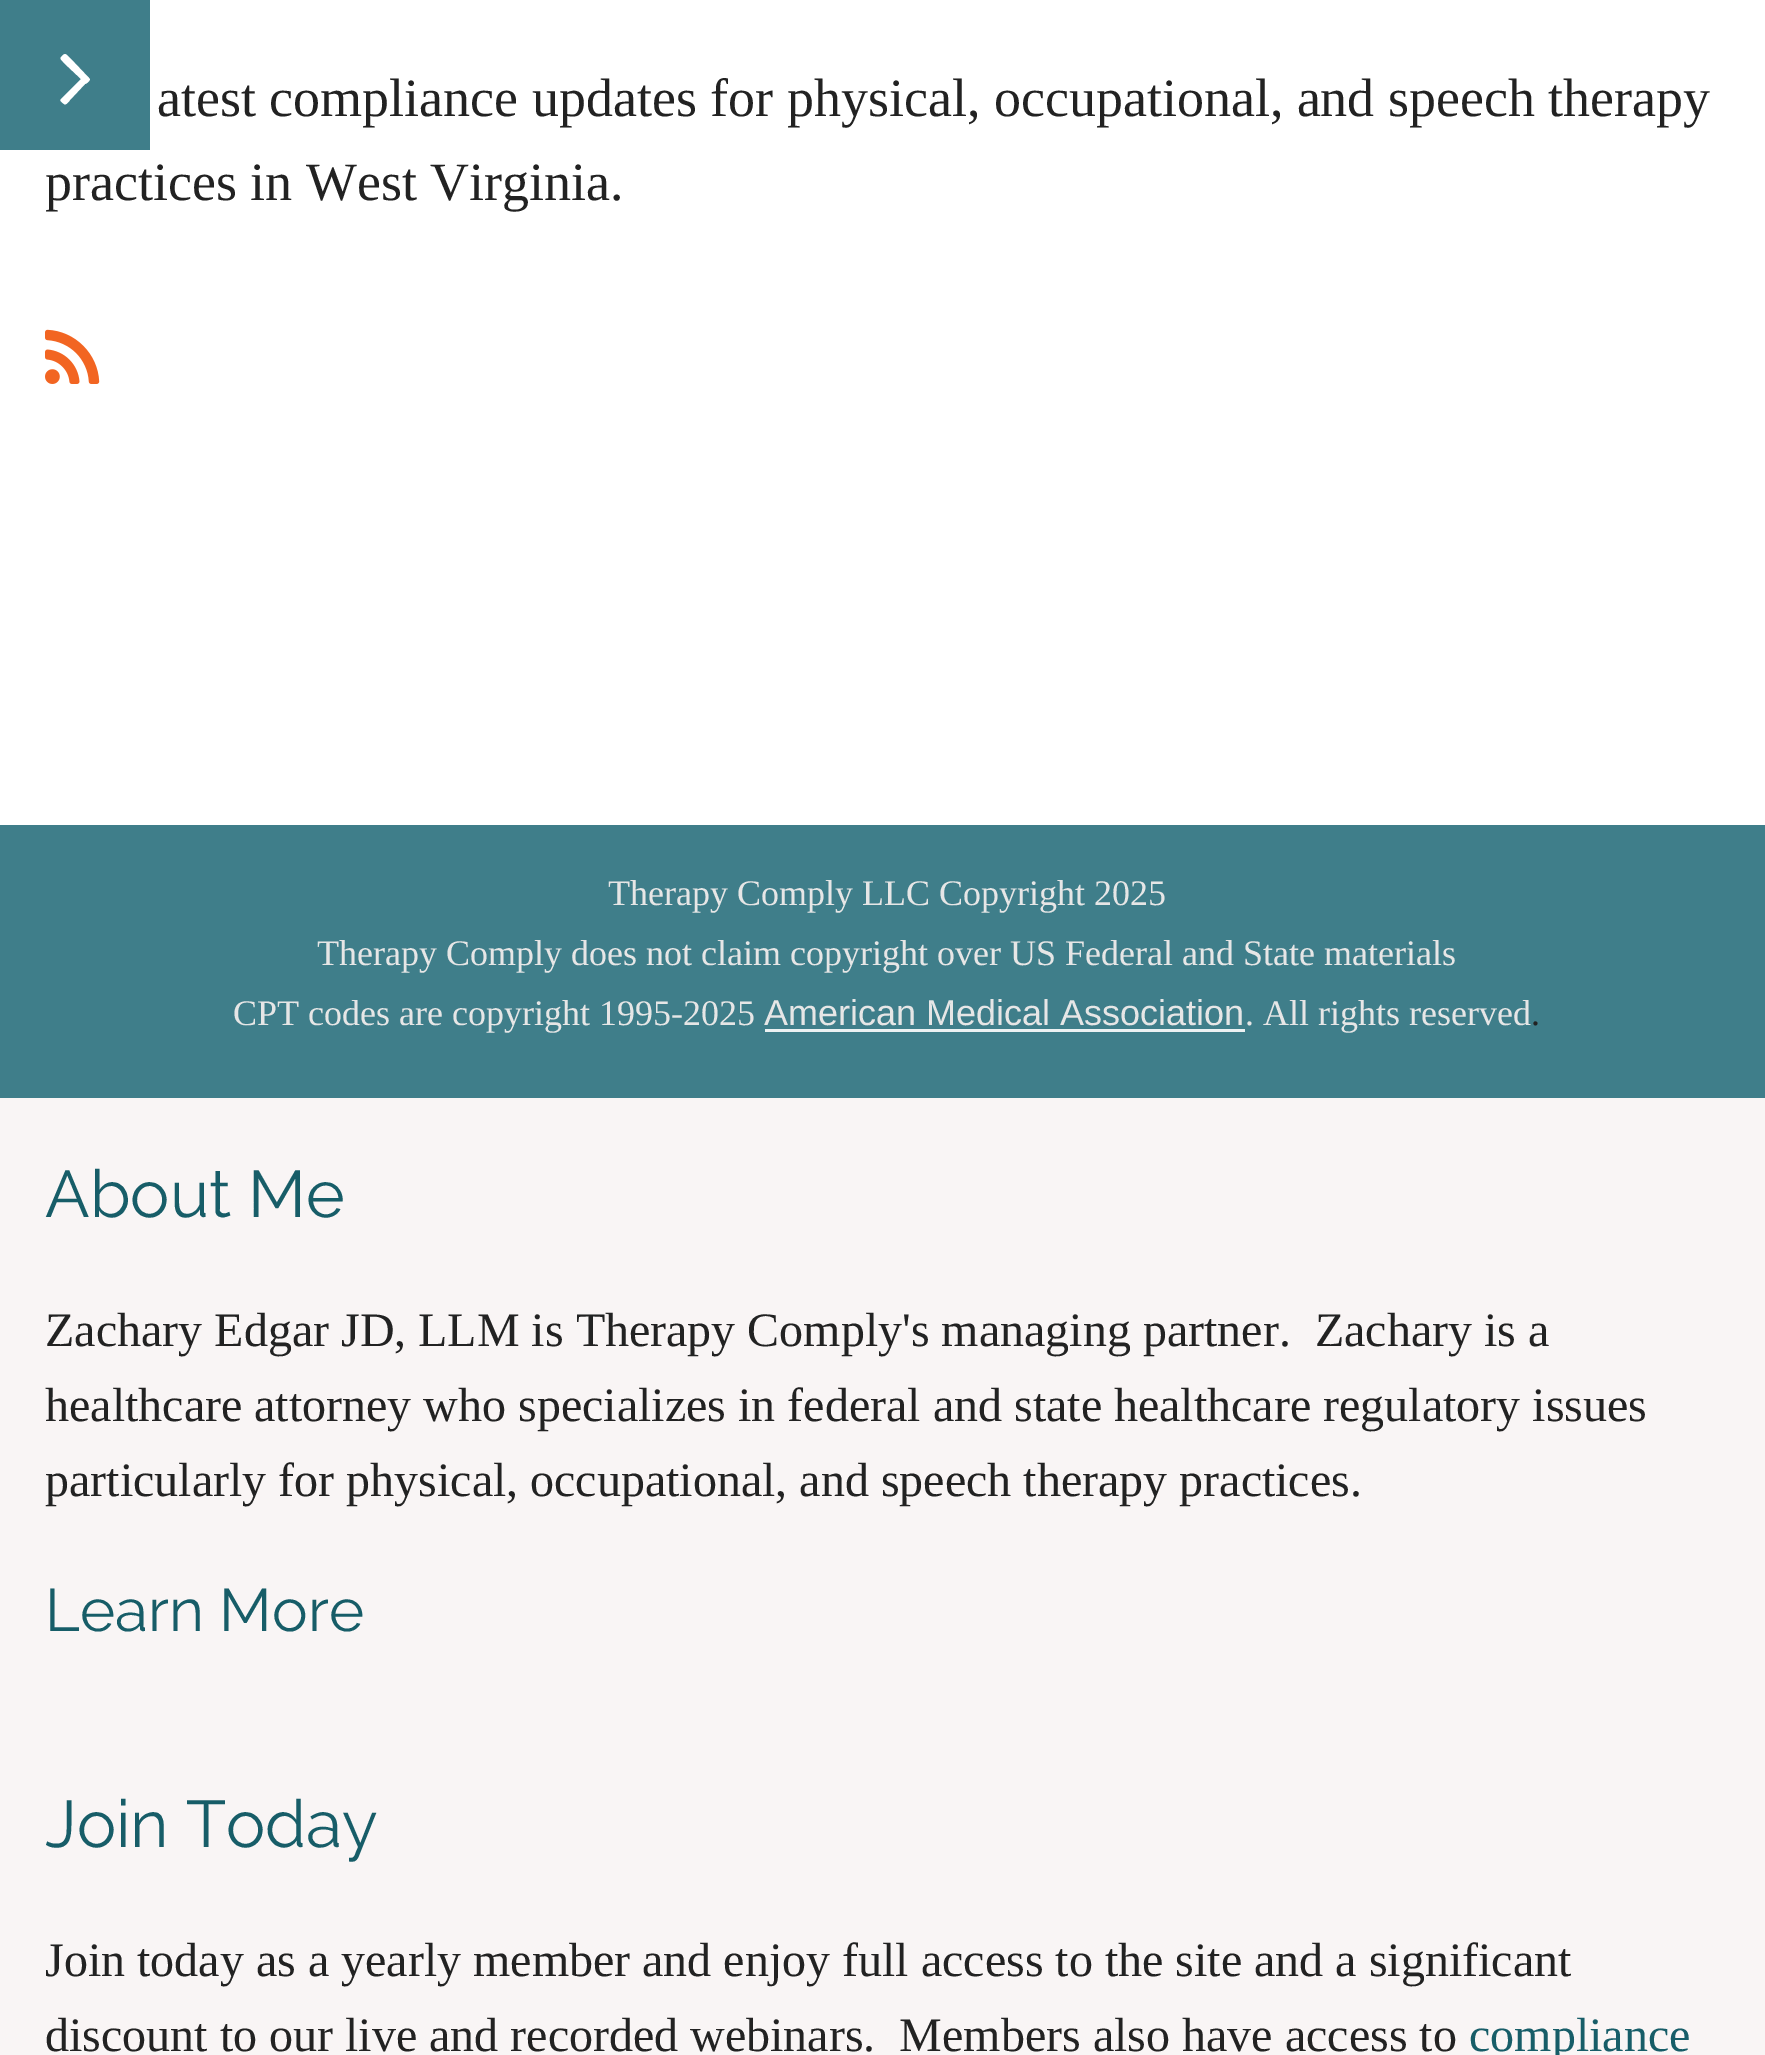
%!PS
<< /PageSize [1765 2055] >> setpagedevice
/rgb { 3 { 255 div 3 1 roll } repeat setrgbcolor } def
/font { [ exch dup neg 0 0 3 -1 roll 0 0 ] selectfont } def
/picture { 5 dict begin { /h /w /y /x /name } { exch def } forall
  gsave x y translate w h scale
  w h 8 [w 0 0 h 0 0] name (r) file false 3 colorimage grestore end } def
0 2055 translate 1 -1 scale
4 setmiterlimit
255 255 255 rgb
0 0 1765 2055 rectfill
63 126 138 rgb
0 0 150 150 rectfill
255 255 255 rgb
89 78 moveto 92 80 86 84 85 84 curveto 70 100 lineto 70 100 66 106 64 104 curveto 63 103 59 101 61 99 curveto 81 79 lineto 64 63 lineto 61 59 59 59 62 56 curveto 66 52 66 55 70 58 curveto closepath fill
(img/1.rgb) 45 329 55 55 picture
[
  [0 825 1765 273 63 126 138]
  [765 1029 480 3 236 242 243]
  [0 1098 1765 957 249 245 245]
] { aload pop rgb rectfill } forall
/LiberationSerif-Regular 54 font
34 34 34 rgb
157 116 moveto (atest compliance updates for physical, occupational, and speech therapy) show
45 200 moveto (practices in West Virginia.) show
/LiberationSerif-Regular 36 font
230 230 230 rgb
[
  [(Therapy Comply LLC Copyright 2025) 608 905]
  [(Therapy Comply does not claim copyright over US Federal and State materials) 317 965]
  [(CPT codes are copyright 1995-2025) 233 1025]
] { aload pop moveto show } forall
/LiberationSans-Regular 36 font
764 1025 moveto (American Medical Association) show
/LiberationSerif-Regular 36 font
1245 1025 moveto (. All rights reserved) show
34 34 34 rgb
1531 1025 moveto (.) show
/Raleway-Regular 66 font
23 93 104 rgb
45 1217 moveto (About Me) show
/LiberationSerif-Regular 48 font
34 34 34 rgb
[
  [(Zachary Edgar JD, LLM is Therapy Comply's managing partner.  Zachary is a) 45 1346]
  [(healthcare attorney who specializes in federal and state healthcare regulatory issues) 45 1421]
  [(particularly for physical, occupational, and speech therapy practices.) 45 1496]
] { aload pop moveto show } forall
/Raleway-Regular 60 font
23 93 104 rgb
45 1631 moveto (Learn More) show
/Raleway-Regular 66 font
45 1847 moveto (Join Today) show
/LiberationSerif-Regular 48 font
34 34 34 rgb
45 1976 moveto (Join today as a yearly member and enjoy full access to the site and a significant) show
45 2051 moveto (discount to our live and recorded webinars.  Members also have access to) show
23 93 104 rgb
1469 2051 moveto (compliance) show
showpage
